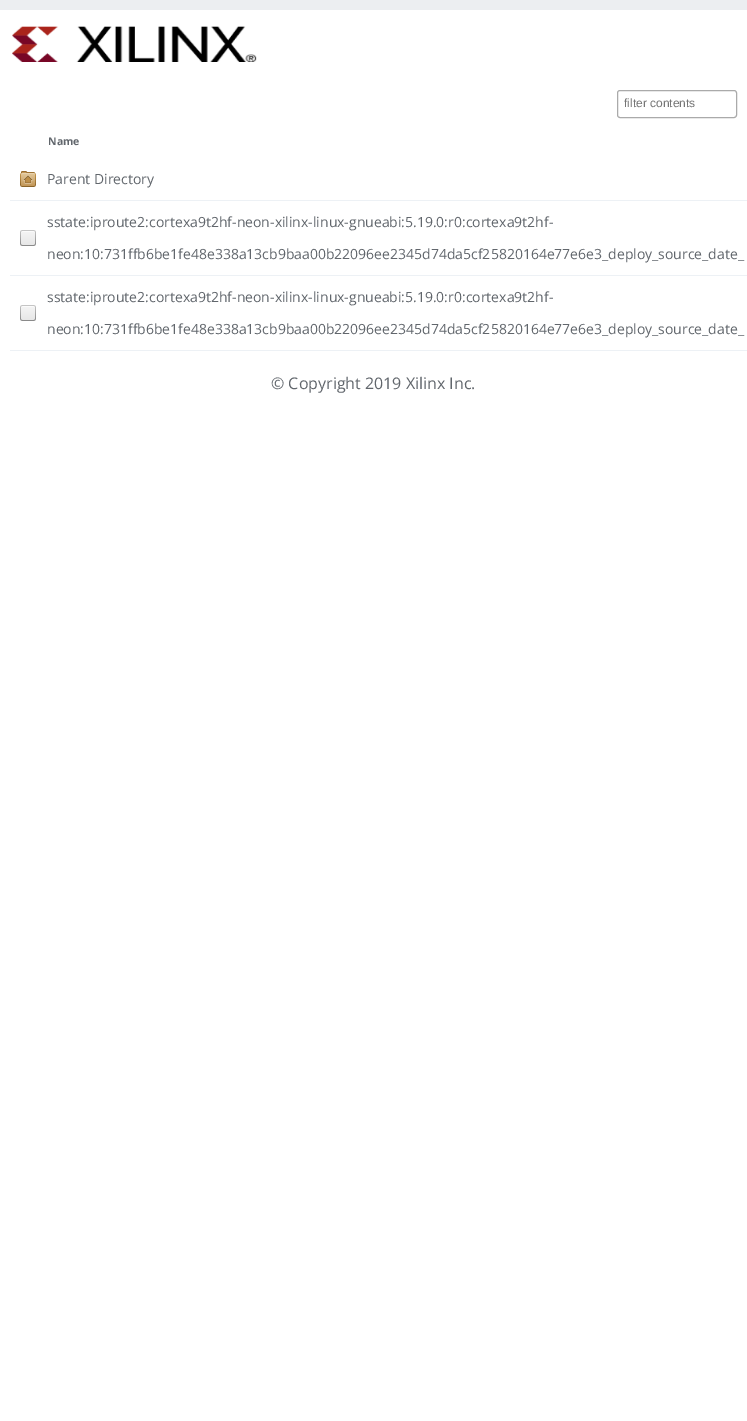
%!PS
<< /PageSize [747 1421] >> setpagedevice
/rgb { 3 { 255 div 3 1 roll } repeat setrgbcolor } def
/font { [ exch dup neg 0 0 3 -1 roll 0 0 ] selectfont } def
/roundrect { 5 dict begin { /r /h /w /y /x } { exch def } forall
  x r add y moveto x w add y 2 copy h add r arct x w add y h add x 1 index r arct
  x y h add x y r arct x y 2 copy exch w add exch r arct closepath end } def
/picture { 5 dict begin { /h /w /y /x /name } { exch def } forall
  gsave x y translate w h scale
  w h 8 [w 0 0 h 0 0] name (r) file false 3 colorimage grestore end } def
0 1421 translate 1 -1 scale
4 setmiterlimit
255 255 255 rgb
0 0 747 1421 rectfill
236 238 241 rgb
0 0 747 10 rectfill
(img/1.rgb) 12 26 245 36 picture
170 170 170 rgb
617.5 90.5 119 27 2.5 roundrect stroke
(img/2.rgb) 20 171 16 16 picture
237 241 245 rgb
10 200 737 1 rectfill
(img/3.rgb) 20 230 16 16 picture
10 275 737 1 rectfill
(img/3.rgb) 20 305 16 16 picture
10 350 737 1 rectfill
/LiberationSans-Regular 12 font
117 117 117 rgb
624 107 moveto (filter contents) show
/OpenSans-Bold 10.5 font
97 102 108 rgb
48 145 moveto (Name) show
/OpenSans-Regular 14 font
[
  [(Parent Directory) 47 184]
  [(sstate:iproute2:cortexa9t2hf-neon-xilinx-linux-gnueabi:5.19.0:r0:cortexa9t2hf-) 47 227]
  [(neon:10:731ffb6be1fe48e338a13cb9baa00b22096ee2345d74da5cf25820164e77e6e3_deploy_source_date_) 47 259]
  [(sstate:iproute2:cortexa9t2hf-neon-xilinx-linux-gnueabi:5.19.0:r0:cortexa9t2hf-) 47 302]
  [(neon:10:731ffb6be1fe48e338a13cb9baa00b22096ee2345d74da5cf25820164e77e6e3_deploy_source_date_) 47 334]
] { aload pop moveto show } forall
/OpenSans-Regular 16 font
271 389 moveto (© Copyright 2019 Xilinx Inc.) show
showpage
